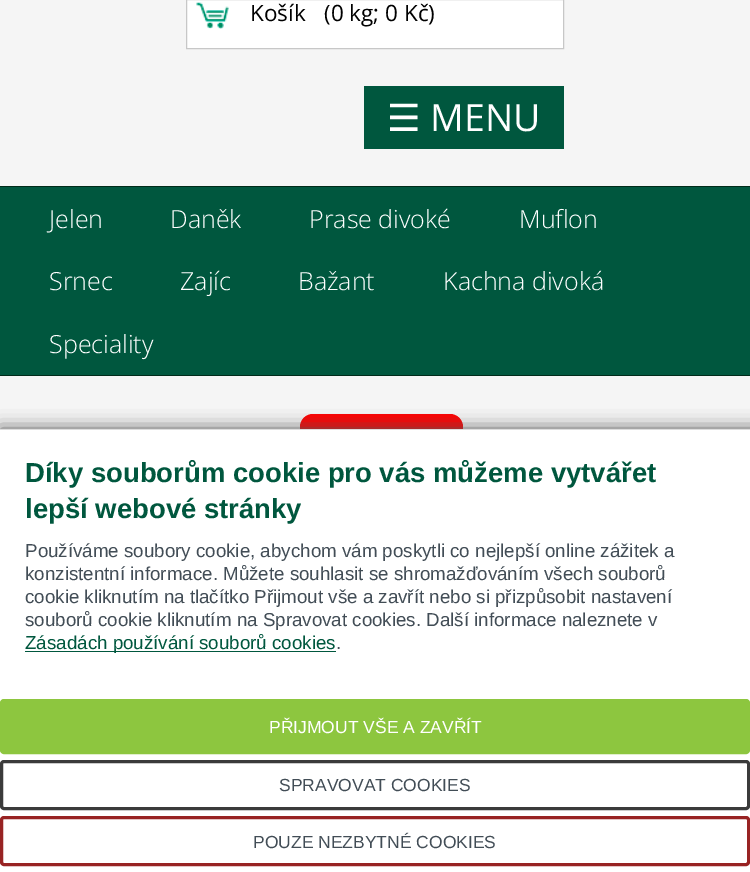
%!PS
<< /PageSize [750 872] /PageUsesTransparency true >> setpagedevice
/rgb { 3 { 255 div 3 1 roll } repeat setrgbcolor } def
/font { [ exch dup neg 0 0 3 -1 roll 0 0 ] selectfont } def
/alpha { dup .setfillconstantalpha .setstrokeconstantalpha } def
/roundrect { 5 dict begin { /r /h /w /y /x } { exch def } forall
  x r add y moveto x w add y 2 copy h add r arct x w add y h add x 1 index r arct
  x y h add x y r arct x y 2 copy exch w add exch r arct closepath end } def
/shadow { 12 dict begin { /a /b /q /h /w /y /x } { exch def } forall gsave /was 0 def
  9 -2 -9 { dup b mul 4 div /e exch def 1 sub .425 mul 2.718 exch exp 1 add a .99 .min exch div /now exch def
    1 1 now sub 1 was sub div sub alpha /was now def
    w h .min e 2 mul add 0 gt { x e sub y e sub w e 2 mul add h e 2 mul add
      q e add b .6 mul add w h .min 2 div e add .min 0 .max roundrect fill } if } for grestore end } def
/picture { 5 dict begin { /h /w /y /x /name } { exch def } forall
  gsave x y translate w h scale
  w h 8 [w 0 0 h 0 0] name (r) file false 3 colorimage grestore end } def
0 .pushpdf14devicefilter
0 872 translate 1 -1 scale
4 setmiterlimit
245 245 245 rgb
0 0 750 872 rectfill
255 255 255 rgb
186.5 -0.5 moveto 563.5 -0.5 lineto 563.5 48.5 lineto 186.5 48.5 lineto closepath gsave fill grestore
199 199 199 rgb
stroke
(img/1.rgb) 196 2 33 27 picture
[
  [364 86 200 63 0 87 62]
  [0 187 750 188 0 87 62]
  [0 186 750 1 0 43 26]
  [0 375 750 1 0 43 26]
] { aload pop rgb rectfill } forall
255 0 0 rgb
300 414 163 122 13 roundrect fill
85 85 85 rgb
0 429 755 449 0 9 1 shadow
[
  [0 430 750 442 255 255 255]
  [0 429 750 1 221 221 221]
  [25 651 311 1 0 87 62]
] { aload pop rgb rectfill } forall
141 198 63 rgb
1.5 700.5 747 52 2.5 roundrect gsave fill grestore
3 setlinewidth
stroke
59 59 59 rgb
1.5 761.5 747 47 2.5 roundrect stroke
152 35 35 rgb
1.5 817.5 747 47 2.5 roundrect stroke
/OpenSans-Regular 22.5 font
0 0 0 rgb
250 21 moveto (Košík) show
324 21 moveto (\(0 kg; 0 Kč\)) show
/DejaVuSans-Regular 37.5 font
255 255 255 rgb
387 131 moveto (☰) show
/OpenSans-Regular 37.5 font
430 131 moveto (MENU) show
/OpenSans-Light 25 font
[
  [(Jelen) 49 228]
  [(Daněk) 170 228]
  [(Prase divoké) 309 228]
  [(Muflon) 519 228]
  [(Srnec) 49 290]
  [(Zajíc) 180 290]
  [(Bažant) 298 290]
  [(Kachna divoká) 443 290]
  [(Speciality) 49 353]
] { aload pop moveto show } forall
/LiberationSans-Bold 27.5 font
0 87 62 rgb
25 482 moveto (Díky souborům cookie pro vás můžeme vytvářet) show
25 518 moveto (lepší webové stránky) show
/LiberationSans-Regular 18.75 font
66 77 86 rgb
[
  [(Používáme soubory cookie, abychom vám poskytli co nejlepší online zážitek a) 25 557]
  [(konzistentní informace. Můžete souhlasit se shromažďováním všech souborů) 25 580]
  [(cookie kliknutím na tlačítko Přijmout vše a zavřít nebo si přizpůsobit nastavení) 25 603]
  [(souborů cookie kliknutím na Spravovat cookies. Další informace naleznete v) 25 626]
] { aload pop moveto show } forall
0 87 62 rgb
25 649 moveto (Zásadách používání souborů cookies) show
66 77 86 rgb
336 649 moveto (.) show
/LiberationSans-Regular 17.5 font
255 255 255 rgb
269 733 moveto (PŘIJMOUT VŠE A ZAVŘÍT) show
66 77 86 rgb
279 791 moveto (SPRAVOVAT COOKIES) show
253 848 moveto (POUZE NEZBYTNÉ COOKIES) show
.poppdf14devicefilter showpage
